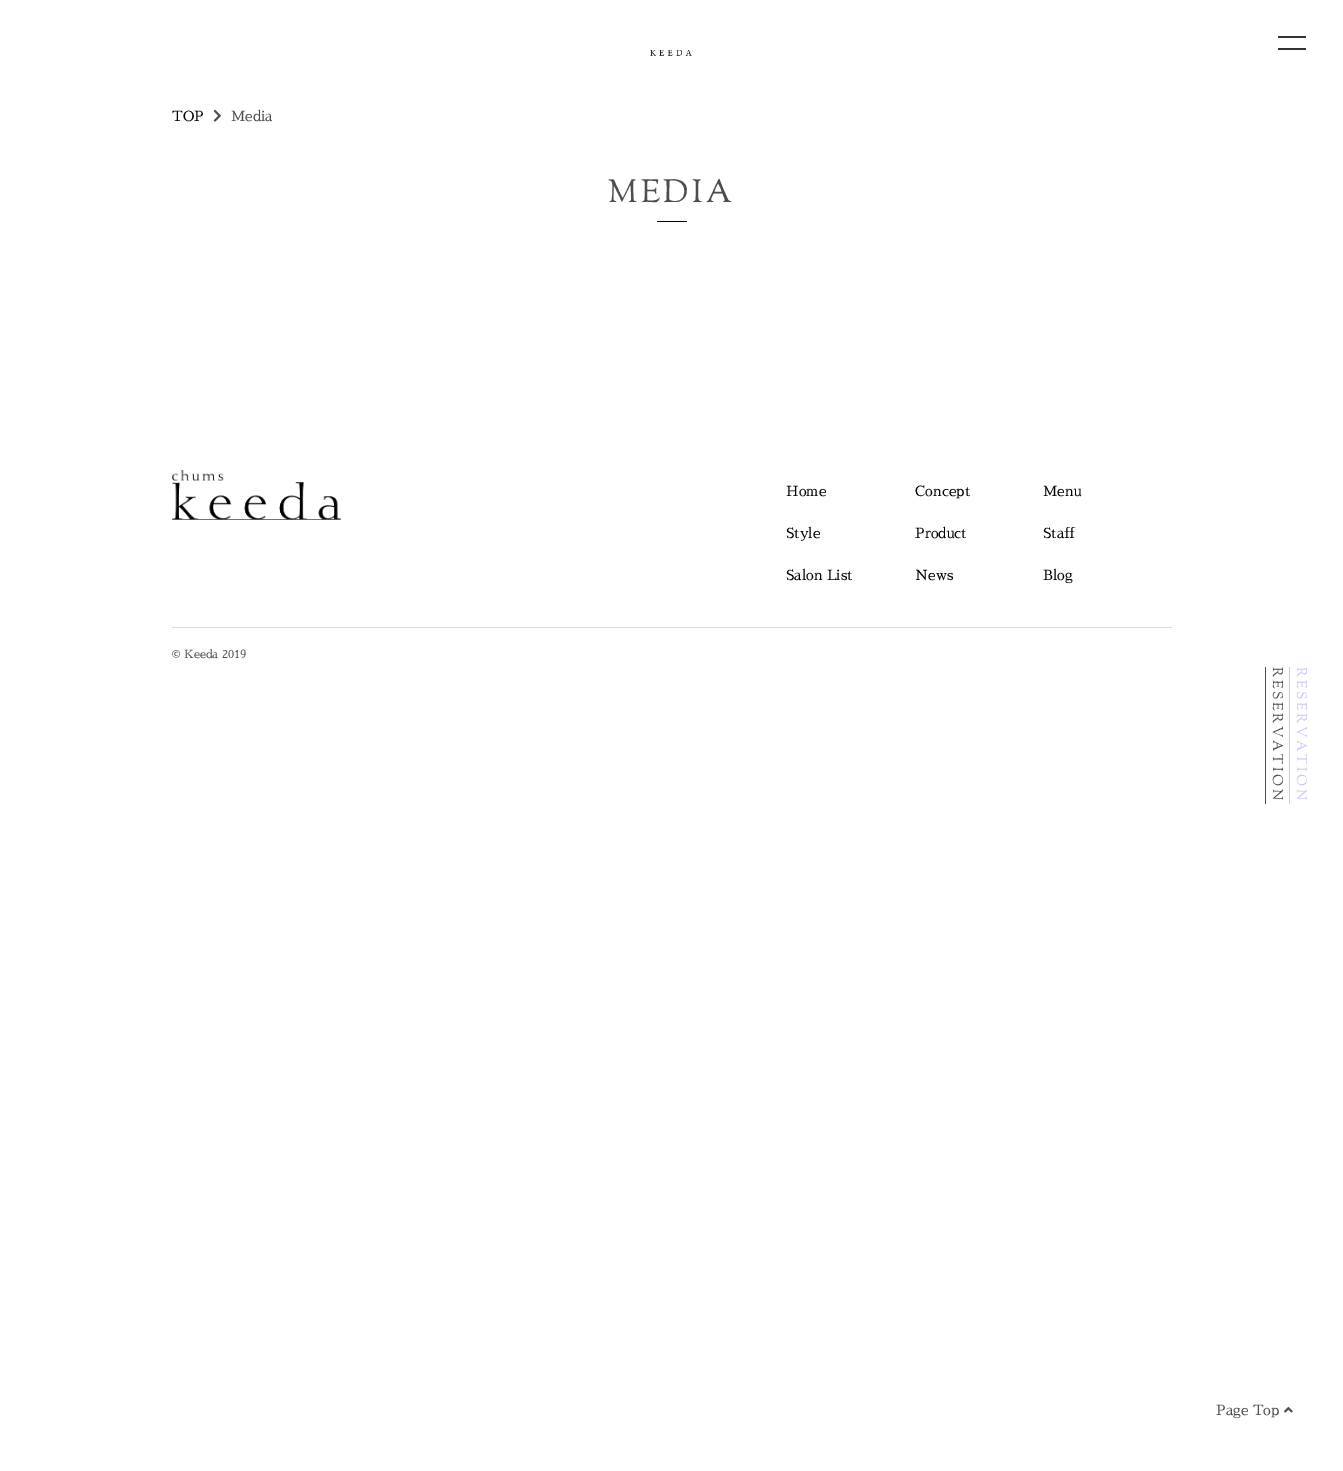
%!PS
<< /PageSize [1343 1471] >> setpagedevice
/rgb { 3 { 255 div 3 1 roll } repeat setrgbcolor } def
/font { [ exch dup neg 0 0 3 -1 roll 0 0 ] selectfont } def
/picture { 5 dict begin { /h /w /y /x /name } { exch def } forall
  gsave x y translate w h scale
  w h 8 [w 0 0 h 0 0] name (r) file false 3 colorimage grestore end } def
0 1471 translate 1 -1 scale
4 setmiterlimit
255 255 255 rgb
0 0 1343 1471 rectfill
(img/1.rgb) 213 109 8 13 picture
0 0 0 rgb
657 221 30 1 rectfill
(img/2.rgb) 172 470 169 50 picture
[
  [172 627 1000 1 217 217 217]
  [1278 36 28 2 51 51 51]
  [1278 48 28 2 51 51 51]
] { aload pop rgb rectfill } forall
(img/3.rgb) 650 50 42 6 picture
77 77 77 rgb
1265 667 1 137 rectfill
198 198 255 rgb
1289 667 1 137 rectfill
(img/4.rgb) 1284 1407 9 6 picture
/SawarabiMincho-Regular 14 font
0 0 0 rgb
172 121 moveto (TOP) show
77 77 77 rgb
231 121 moveto (Media) show
/SortsMillGoudy-Regular 32 font
608 202 moveto 3.25 0 (MEDIA) ashow
/SawarabiMincho-Regular 14 font
0 0 0 rgb
[
  [(Home) 786 496]
  [(Concept) 915 496]
  [(Menu) 1043 496]
  [(Style) 786 538]
  [(Product) 915 538]
  [(Staff) 1043 538]
  [(Salon List) 786 580]
  [(News) 915 580]
  [(Blog) 1043 580]
] { aload pop moveto show } forall
/SawarabiMincho-Regular 11.25 font
77 77 77 rgb
172 658 moveto (© Keeda 2019) show
/SortsMillGoudy-Regular 14 font
gsave 1273 667 translate 90 rotate 0 0 moveto 2.75 0 (RESERVATION) ashow grestore
198 198 255 rgb
gsave 1297 667 translate 90 rotate 0 0 moveto 2.75 0 (RESERVATION) ashow grestore
/SawarabiMincho-Regular 14 font
77 77 77 rgb
1216 1415 moveto (Page Top) show
showpage
